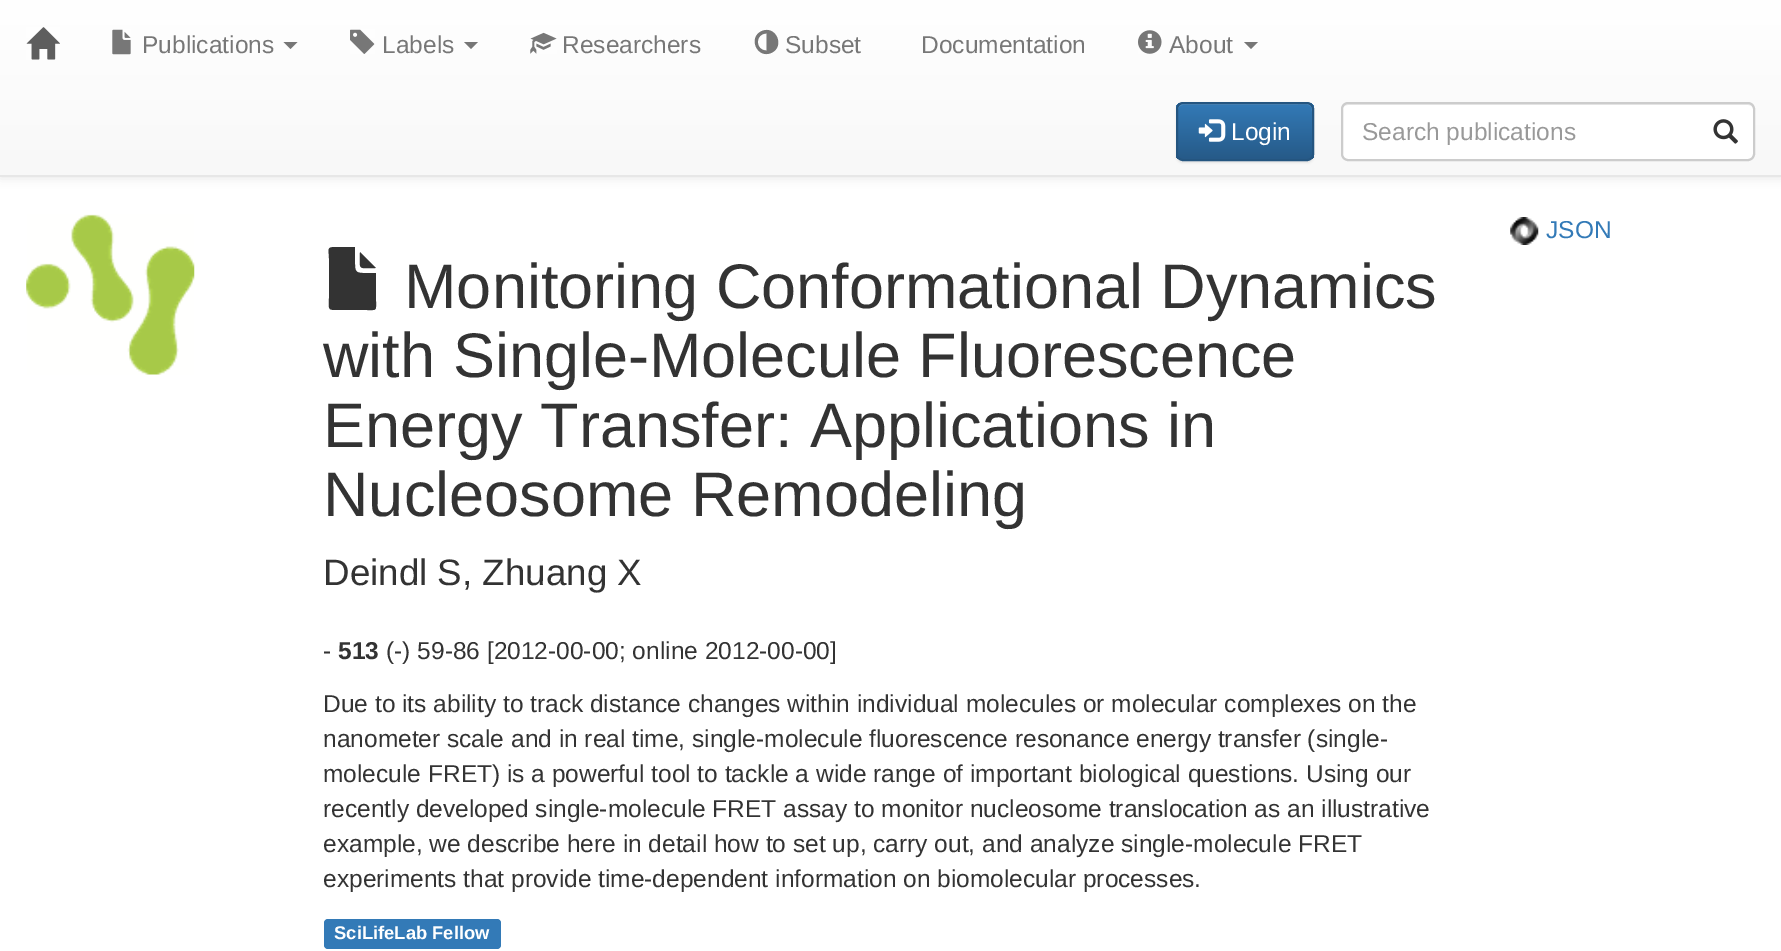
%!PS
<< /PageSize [1781 951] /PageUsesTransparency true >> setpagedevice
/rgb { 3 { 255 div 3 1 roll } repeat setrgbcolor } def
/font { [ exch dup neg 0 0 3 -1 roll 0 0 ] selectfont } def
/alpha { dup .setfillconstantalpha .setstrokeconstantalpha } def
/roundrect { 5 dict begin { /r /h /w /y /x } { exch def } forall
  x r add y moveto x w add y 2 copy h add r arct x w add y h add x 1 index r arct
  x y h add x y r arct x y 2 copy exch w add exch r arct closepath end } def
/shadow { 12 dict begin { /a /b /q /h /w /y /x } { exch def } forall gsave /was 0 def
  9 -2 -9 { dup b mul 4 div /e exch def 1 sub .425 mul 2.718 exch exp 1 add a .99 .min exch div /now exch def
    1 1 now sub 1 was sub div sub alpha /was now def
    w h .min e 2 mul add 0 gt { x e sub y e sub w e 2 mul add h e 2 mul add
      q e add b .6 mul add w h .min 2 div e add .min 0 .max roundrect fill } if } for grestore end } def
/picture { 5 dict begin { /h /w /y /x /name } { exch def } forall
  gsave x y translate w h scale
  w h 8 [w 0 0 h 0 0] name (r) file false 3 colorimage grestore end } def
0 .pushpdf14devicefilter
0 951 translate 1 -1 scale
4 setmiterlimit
255 255 255 rgb
0 0 1781 951 rectfill
0 0 0 rgb
0 2 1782 177 0 4.5 0.07 shadow
gsave 0 0 moveto 1781 0 lineto 1781 175 lineto 0 175 lineto closepath clip newpath
<< /ShadingType 2 /ColorSpace /DeviceRGB /Coords [891 0 891 175] /Extend [true true] /Function << /FunctionType 2 /Domain [0 1] /C0 [1 1 1] /C1 [0.973 0.973 0.973] /N 1 >> >> shfill grestore
231 231 231 rgb
0 175 1781 2 rectfill
(img/1.rgb) 26 27 34 33 picture
(img/2.rgb) 112 29 19 26 picture
119 119 119 rgb
283.5 42 moveto 297.5 42 lineto 290.5 49 lineto closepath fill
(img/3.rgb) 350 29 25 25 picture
464 42 moveto 478 42 lineto 471 49 lineto closepath fill
(img/4.rgb) 530 32 27 22 picture
762 31 moveto 776 25 785.5 47 771 53 curveto 757 59 747.5 37 762 31 curveto closepath 766.5 50.5 moveto 766.5 33.5 lineto 755 33.5 755 50.5 766.5 50.5 curveto closepath fill
(img/5.rgb) 1138 30 24 24 picture
1244 42 moveto 1258 42 lineto 1251 49 lineto closepath fill
0 0 0 rgb
1176 103 138 60 7 1 0.07 shadow
gsave
1176 102 138 59 7 roundrect clip newpath
gsave 1176 103 moveto 1314 103 lineto 1314 159 lineto 1176 159 lineto closepath clip newpath
<< /ShadingType 2 /ColorSpace /DeviceRGB /Coords [1245 103 1245 159] /Extend [true true] /Function << /FunctionType 2 /Domain [0 1] /C0 [0.2 0.478 0.718] /C1 [0.149 0.353 0.533] /N 1 >> >> shfill grestore
grestore
0.15 alpha
255 255 255 rgb
1183 105 moveto 1286 105 lineto 1315 105 1312 100 1312 125 curveto 1312 157 lineto 1313 156 1313 155 1313 154 curveto 1313 108 lineto 1313 105 1311 103 1308 103 curveto 1183 103 lineto 1180 103 1178 105 1178 108 curveto 1178 110 lineto 1178 107 1180 105 1183 105 curveto closepath fill
1 alpha
36 85 128 rgb
2 setlinewidth
1177 103 136 57 6 roundrect stroke
(img/6.rgb) 1198 119 28 23 picture
255 255 255 rgb
1341 102 414 59 7 roundrect fill
236 236 236 rgb
1348 105 moveto 1748 105 lineto 1751 105 1754 107 1754 110 curveto 1754 108 lineto 1754 105 1752 103 1749 103 curveto 1347 103 lineto 1344 103 1342 105 1342 108 curveto 1342 110 lineto 1342 107 1345 105 1348 105 curveto closepath fill
204 204 204 rgb
1342 103 412 57 6 roundrect stroke
(img/7.rgb) 1713 119 25 25 picture
(img/8.rgb) 26 214 169 161 picture
(img/9.rgb) 1510 217 29 28 picture
51 51 51 rgb
355 247 moveto 355 264 lineto 355 271 356 273 363 273 curveto 376 273 lineto 376 301 lineto 376 311 377 310 367 310 curveto 339 310 lineto 327 310 329 310 329 298 curveto 329 259 lineto 329 249 326 247 336 247 curveto closepath 376 268 moveto 357 268 360 271 360 252 curveto closepath fill
51 122 183 rgb
324 919 177 30 4 roundrect fill
/LiberationSans-Regular 24.5 font
119 119 119 rgb
[
  [(Publications) 142 53]
  [(Labels) 382 53]
  [(Researchers) 562 53]
  [(Subset) 785 53]
  [(Documentation) 921 53]
  [(About) 1169 53]
] { aload pop moveto show } forall
255 255 255 rgb
1231 140 moveto (Login) show
153 153 153 rgb
1362 140 moveto (Search publications) show
51 122 183 rgb
1546 238 moveto (JSON) show
/LiberationSans-Regular 63 font
51 51 51 rgb
[
  [(Monitoring Conformational Dynamics) 404 308]
  [(with Single-Molecule Fluorescence) 323 377]
  [(Energy Transfer: Applications in) 323 447]
  [(Nucleosome Remodeling) 323 516]
] { aload pop moveto show } forall
/LiberationSans-Regular 36.75 font
323 585 moveto (Deindl S, Zhuang X) show
/LiberationSans-Regular 24.5 font
323 659 moveto (-) show
/LiberationSans-Bold 24.5 font
338 659 moveto (513) show
/LiberationSans-Regular 24.5 font
[
  [(\(-\) 59-86 [2012-00-00; online 2012-00-00]) 386 659]
  [(Due to its ability to track distance changes within individual molecules or molecular complexes on the) 323 712]
  [(nanometer scale and in real time, single-molecule fluorescence resonance energy transfer \(single-) 323 747]
  [(molecule FRET\) is a powerful tool to tackle a wide range of important biological questions. Using our) 323 782]
  [(recently developed single-molecule FRET assay to monitor nucleosome translocation as an illustrative) 323 817]
  [(example, we describe here in detail how to set up, carry out, and analyze single-molecule FRET) 323 852]
  [(experiments that provide time-dependent information on biomolecular processes.) 323 887]
] { aload pop moveto show } forall
/LiberationSans-Bold 18.4 font
255 255 255 rgb
334 939 moveto (SciLifeLab Fellow) show
.poppdf14devicefilter showpage
